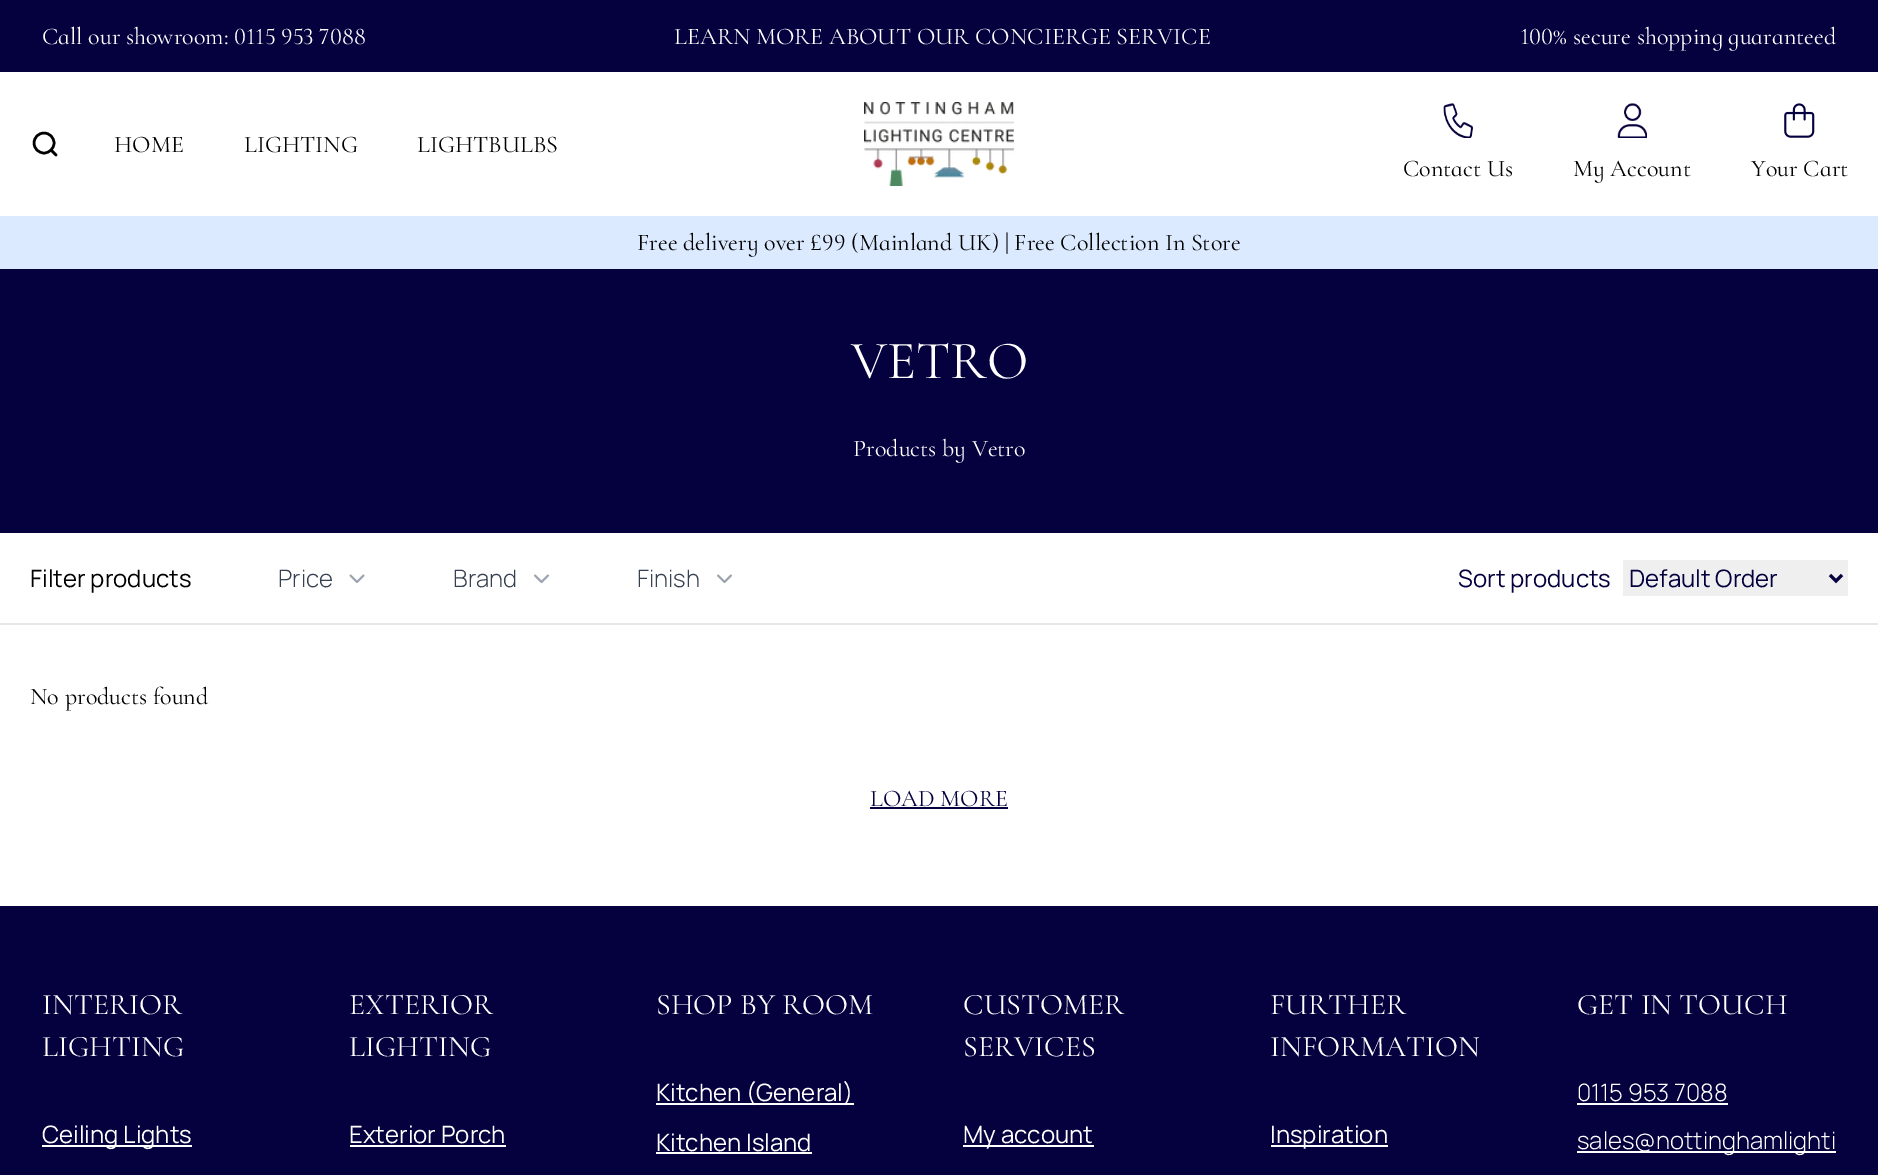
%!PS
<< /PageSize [1878 1175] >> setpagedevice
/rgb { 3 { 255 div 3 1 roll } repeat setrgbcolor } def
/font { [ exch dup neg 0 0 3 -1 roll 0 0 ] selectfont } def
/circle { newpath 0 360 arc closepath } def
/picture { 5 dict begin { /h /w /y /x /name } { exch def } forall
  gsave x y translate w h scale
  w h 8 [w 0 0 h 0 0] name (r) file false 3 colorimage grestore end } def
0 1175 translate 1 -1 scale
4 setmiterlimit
255 255 255 rgb
0 0 1878 1175 rectfill
5 0 62 rgb
0 0 1878 72 rectfill
0 0 0 rgb
2.5 setlinewidth
44 143 10 circle stroke
1 setlinecap
1 setlinejoin
56 155 moveto 51 150 lineto stroke
(img/1.rgb) 864 102 150 84 picture
(img/2.rgb) 1443 103 30 35 picture
(img/3.rgb) 1617 103 30 35 picture
(img/4.rgb) 1784 103 31 35 picture
[
  [0 216 1878 53 219 234 254]
  [0 269 1878 264 5 0 62]
  [0 623 1878 2 229 231 235]
] { aload pop rgb rectfill } forall
(img/5.rgb) 349 574 16 9 picture
(img/6.rgb) 534 574 15 10 picture
(img/6.rgb) 717 574 15 10 picture
239 239 239 rgb
1623 560 225 36 rectfill
5 0 62 rgb
3 setlinewidth
0 setlinecap
0 setlinejoin
1830 575 moveto 1836 581 lineto 1842 575 lineto stroke
[
  [870 807 138 2 5 0 62]
  [0 906 1878 269 5 0 62]
  [42 1145 150 2 255 255 255]
  [350 1145 156 2 255 255 255]
  [656 1103 198 2 255 255 255]
  [656 1152 156 2 255 255 255]
  [963 1145 131 2 255 255 255]
  [1271 1145 117 2 255 255 255]
  [1577 1103 151 2 255 255 255]
  [1577 1151 259 2 255 255 255]
] { aload pop rgb rectfill } forall
/CormorantInfant-Regular 24 font
[
  [(Call our showroom: 0115 953 7088) 42 44]
  [(LEARN MORE ABOUT OUR CONCIERGE SERVICE) 674 44]
  [(100% secure shopping guaranteed) 1520 44]
] { aload pop moveto show } forall
0 0 0 rgb
[
  [(HOME) 114 152]
  [(LIGHTING) 244 152]
  [(LIGHTBULBS) 417 152]
  [(Contact Us) 1403 176]
  [(My Account) 1573 176]
  [(Your Cart) 1751 176]
  [(Free delivery over £99 \(Mainland UK\) | Free Collection In Store) 637 250]
] { aload pop moveto show } forall
/CormorantInfant-Regular 54 font
255 255 255 rgb
851 378 moveto (VETRO) show
/CormorantInfant-Regular 24 font
853 456 moveto (Products by Vetro) show
/Manrope-Regular 24 font
0 0 0 rgb
30 587 moveto (Filter products) show
/Manrope-Light 24 font
55 65 81 rgb
[
  [(Price) 278 587]
  [(Brand) 453 587]
  [(Finish) 637 587]
] { aload pop moveto show } forall
/Manrope-Regular 24 font
5 0 62 rgb
1458 587 moveto (Sort products) show
1629 587 moveto (Default Order) show
/CormorantInfant-Regular 24 font
0 0 0 rgb
30 704 moveto (No products found) show
5 0 62 rgb
870 806 moveto (LOAD MORE) show
/CormorantInfant-Regular 30 font
255 255 255 rgb
42 1014 moveto (INTERIOR) show
42 1056 moveto (LIGHTING) show
/Manrope-Regular 24 font
42 1143 moveto (Ceiling Lights) show
/CormorantInfant-Regular 30 font
349 1014 moveto (EXTERIOR) show
349 1056 moveto (LIGHTING) show
/Manrope-Regular 24 font
349 1143 moveto (Exterior Porch) show
/CormorantInfant-Regular 30 font
656 1014 moveto (SHOP BY ROOM) show
/Manrope-Regular 24 font
656 1101 moveto (Kitchen \(General\)) show
656 1151 moveto (Kitchen Island) show
/CormorantInfant-Regular 30 font
963 1014 moveto (CUSTOMER) show
963 1056 moveto (SERVICES) show
/Manrope-Regular 24 font
963 1143 moveto (My account) show
/CormorantInfant-Regular 30 font
1270 1014 moveto (FURTHER) show
1270 1056 moveto (INFORMATION) show
/Manrope-Regular 24 font
1270 1143 moveto (Inspiration) show
/CormorantInfant-Regular 30 font
1577 1014 moveto (GET IN TOUCH) show
/Manrope-Light 24 font
1577 1101 moveto (0115 953 7088) show
1577 1149 moveto (sales@nottinghamlighti) show
showpage
